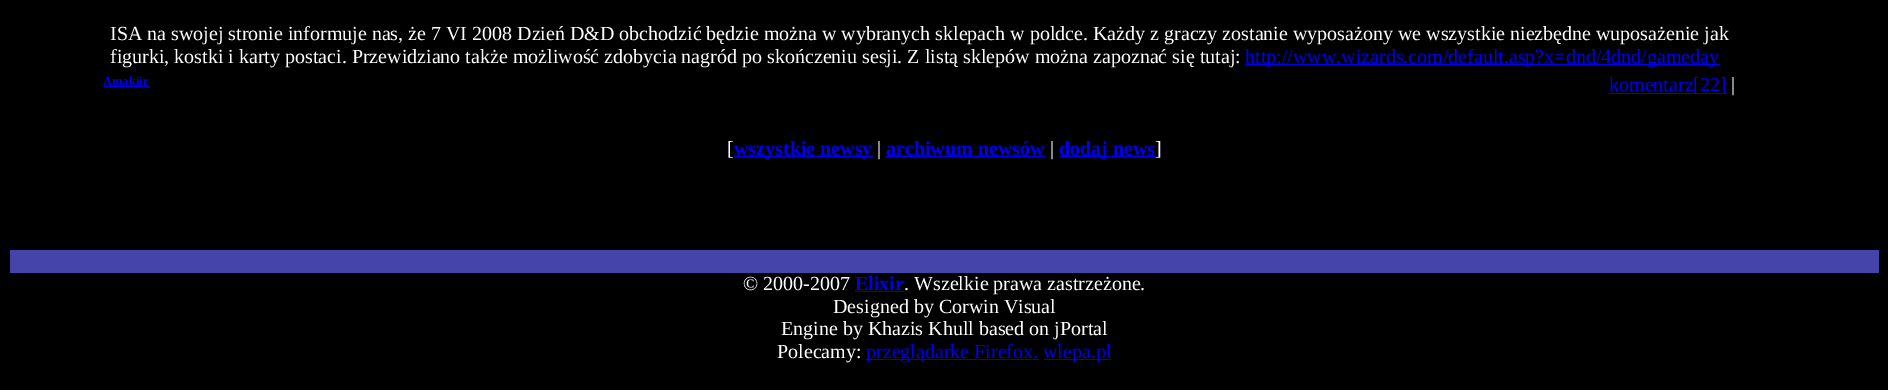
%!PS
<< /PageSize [1888 390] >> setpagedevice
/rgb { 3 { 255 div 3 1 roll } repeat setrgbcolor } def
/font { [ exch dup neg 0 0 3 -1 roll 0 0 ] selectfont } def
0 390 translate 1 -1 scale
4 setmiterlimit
0 0 0 rgb
0 0 1888 390 rectfill
[
  [1245 64 475 1 0 0 238]
  [104 86 45 1 0 0 238]
  [1609 93 117 1 0 0 238]
  [734 156 139 1 0 0 238]
  [886 156 159 1 0 0 238]
  [1059 156 96 1 0 0 238]
  [10 250 1869 23 68 68 170]
  [855 291 49 1 0 0 238]
  [866 359 173 1 0 0 238]
  [1044 359 67 1 0 0 238]
] { aload pop rgb rectfill } forall
/LiberationSerif-Regular 20 font
255 255 255 rgb
110 40 moveto (ISA na swojej stronie informuje nas, że 7 VI 2008 Dzień D&D obchodzić będzie można w wybranych sklepach w poldce. Każdy z graczy zostanie wyposażony we wszystkie niezbędne wuposażenie jak) show
110 63 moveto (figurki, kostki i karty postaci. Przewidziano także możliwość zdobycia nagród po skończeniu sesji. Z listą sklepów można zapoznać się tutaj:) show
0 0 238 rgb
1245 63 moveto (http://www.wizards.com/default.asp?x=dnd/4dnd/gameday) show
/LiberationSerif-Bold 12.5 font
103 85 moveto (Amakiir) show
/LiberationSerif-Regular 20 font
1609 91 moveto (komentarz[22]) show
255 255 255 rgb
1731 91 moveto (|) show
727 155 moveto ([) show
/LiberationSerif-Bold 20 font
0 0 238 rgb
734 155 moveto (wszystkie newsy) show
/LiberationSerif-Regular 20 font
255 255 255 rgb
877 155 moveto (|) show
/LiberationSerif-Bold 20 font
0 0 238 rgb
886 155 moveto (archiwum newsów) show
/LiberationSerif-Regular 20 font
255 255 255 rgb
1050 155 moveto (|) show
/LiberationSerif-Bold 20 font
0 0 238 rgb
1059 155 moveto (dodaj news) show
/LiberationSerif-Regular 20 font
255 255 255 rgb
1155 155 moveto (]) show
743 290 moveto (© 2000-2007) show
/LiberationSerif-Bold 20 font
0 0 238 rgb
855 290 moveto (Elixir) show
/LiberationSerif-Regular 20 font
255 255 255 rgb
[
  [(. Wszelkie prawa zastrzeżone.) 904 290]
  [(Designed by Corwin Visual) 833 313]
  [(Engine by Khazis Khull based on jPortal) 781 335]
  [(Polecamy:) 777 358]
] { aload pop moveto show } forall
0 0 238 rgb
866 358 moveto (przeglądarke Firefox.) show
1043 358 moveto (wlepa.pl) show
showpage
